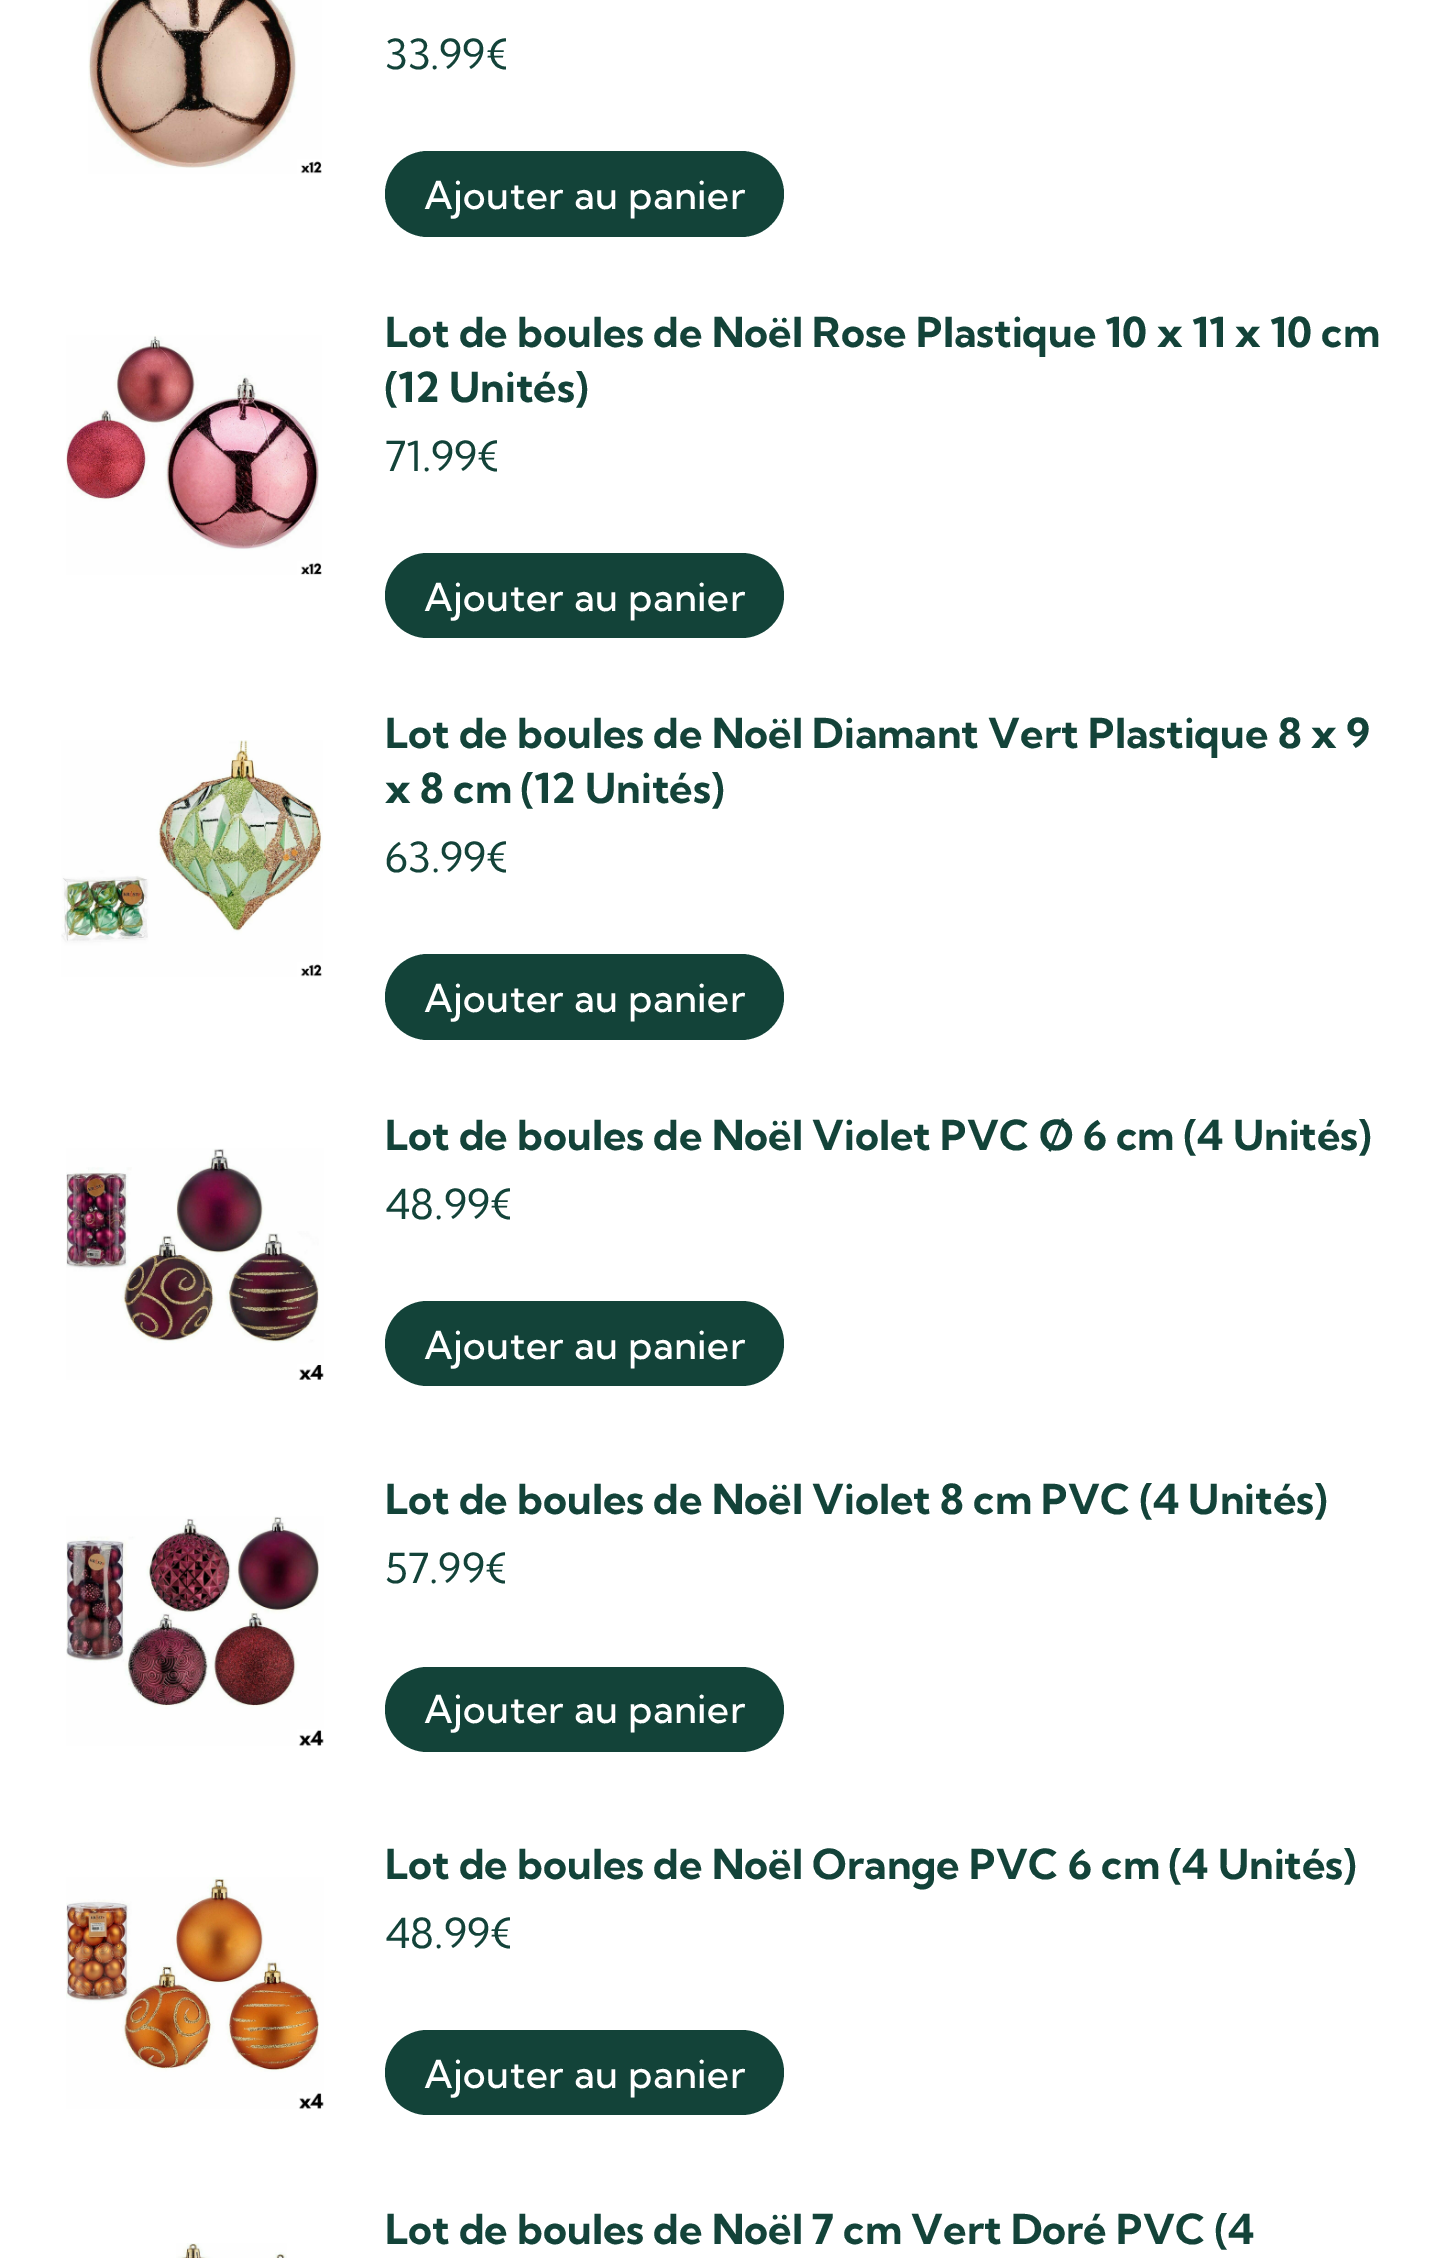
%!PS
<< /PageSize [1433 2258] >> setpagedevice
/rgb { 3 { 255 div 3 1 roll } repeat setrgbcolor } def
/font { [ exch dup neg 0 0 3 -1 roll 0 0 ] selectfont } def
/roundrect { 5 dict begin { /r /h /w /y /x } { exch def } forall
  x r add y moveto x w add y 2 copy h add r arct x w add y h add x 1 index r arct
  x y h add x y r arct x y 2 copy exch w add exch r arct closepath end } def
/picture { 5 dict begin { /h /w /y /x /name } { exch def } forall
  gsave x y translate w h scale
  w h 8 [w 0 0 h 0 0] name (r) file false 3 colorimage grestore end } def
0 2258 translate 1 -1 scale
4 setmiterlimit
255 255 255 rgb
0 0 1433 2258 rectfill
(img/1.rgb) 88 0 234 174 picture
19 67 57 rgb
385 151 399 86 43 roundrect fill
(img/2.rgb) 66 335 256 240 picture
385 553 399 85 42.5 roundrect fill
(img/3.rgb) 61 740 262 237 picture
385 954 399 86 43 roundrect fill
(img/4.rgb) 66 1148 258 232 picture
385 1301 399 85 42.5 roundrect fill
(img/5.rgb) 66 1516 258 230 picture
385 1667 399 85 42.5 roundrect fill
(img/6.rgb) 66 1877 258 232 picture
385 2030 399 85 42.5 roundrect fill
(img/7.rgb) 176 2243 111 15 picture
/KumbhSans-Regular 41.25 font
385 69 moveto (33.99€) show
/KumbhSans-Medium 38.5 font
255 255 255 rgb
424 209 moveto 0.5 0 (Ajouter au panier) ashow
/KumbhSans-Bold 41.25 font
19 67 57 rgb
385 347 moveto (Lot de boules de Noël Rose Plastique 10 x 11 x 10 cm) show
385 402 moveto (\(12 Unités\)) show
/KumbhSans-Regular 41.25 font
385 471 moveto (71.99€) show
/KumbhSans-Medium 38.5 font
255 255 255 rgb
424 611 moveto 0.5 0 (Ajouter au panier) ashow
/KumbhSans-Bold 41.25 font
19 67 57 rgb
385 748 moveto (Lot de boules de Noël Diamant Vert Plastique 8 x 9) show
385 803 moveto (x 8 cm \(12 Unités\)) show
/KumbhSans-Regular 41.25 font
385 872 moveto (63.99€) show
/KumbhSans-Medium 38.5 font
255 255 255 rgb
424 1012 moveto 0.5 0 (Ajouter au panier) ashow
/KumbhSans-Bold 41.25 font
19 67 57 rgb
385 1150 moveto (Lot de boules de Noël Violet PVC Ø 6 cm \(4 Unités\)) show
/KumbhSans-Regular 41.25 font
385 1219 moveto (48.99€) show
/KumbhSans-Medium 38.5 font
255 255 255 rgb
424 1359 moveto 0.5 0 (Ajouter au panier) ashow
/KumbhSans-Bold 41.25 font
19 67 57 rgb
385 1514 moveto (Lot de boules de Noël Violet 8 cm PVC \(4 Unités\)) show
/KumbhSans-Regular 41.25 font
385 1583 moveto (57.99€) show
/KumbhSans-Medium 38.5 font
255 255 255 rgb
424 1723 moveto 0.5 0 (Ajouter au panier) ashow
/KumbhSans-Bold 41.25 font
19 67 57 rgb
385 1879 moveto (Lot de boules de Noël Orange PVC 6 cm \(4 Unités\)) show
/KumbhSans-Regular 41.25 font
385 1948 moveto (48.99€) show
/KumbhSans-Medium 38.5 font
255 255 255 rgb
424 2088 moveto 0.5 0 (Ajouter au panier) ashow
/KumbhSans-Bold 41.25 font
19 67 57 rgb
385 2244 moveto (Lot de boules de Noël 7 cm Vert Doré PVC \(4) show
showpage
